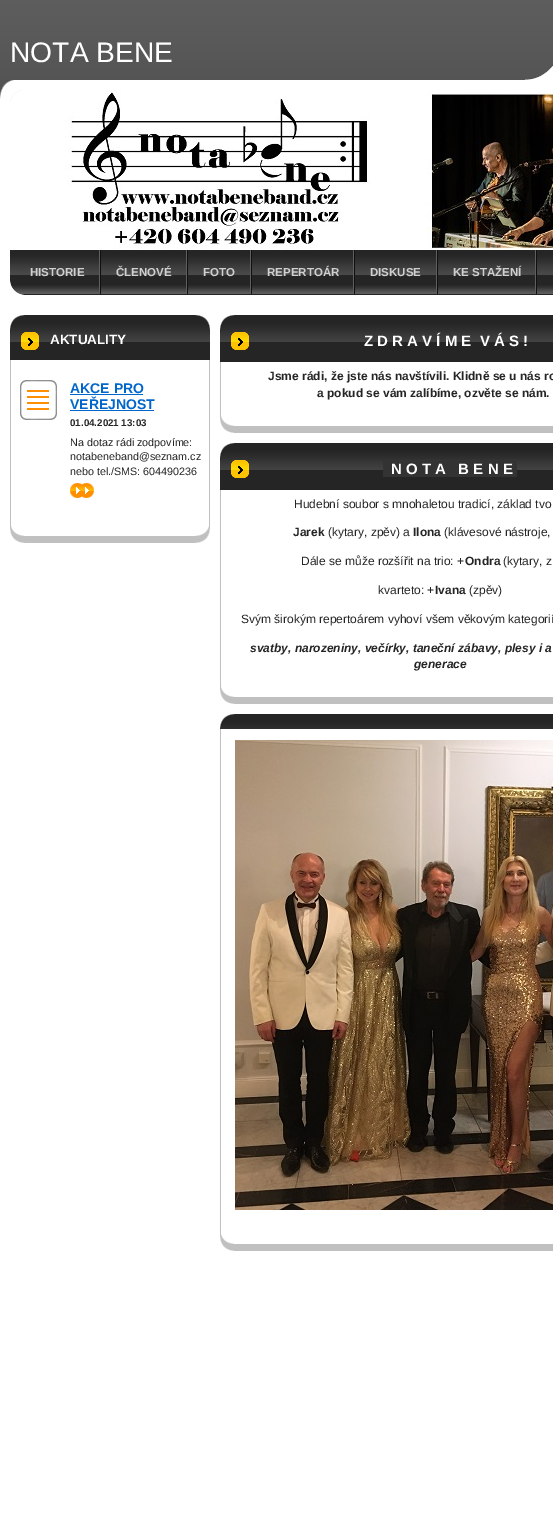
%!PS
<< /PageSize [553 1530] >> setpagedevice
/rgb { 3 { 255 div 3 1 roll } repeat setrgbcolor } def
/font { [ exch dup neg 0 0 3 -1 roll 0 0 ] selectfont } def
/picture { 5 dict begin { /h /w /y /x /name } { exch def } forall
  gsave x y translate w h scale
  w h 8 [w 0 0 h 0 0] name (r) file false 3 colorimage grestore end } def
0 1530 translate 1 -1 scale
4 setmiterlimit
255 255 255 rgb
0 0 553 1530 rectfill
(img/1.rgb) 0 0 553 91 picture
(img/2.rgb) 0 80 553 170 picture
(img/3.rgb) 0 80 22 22 picture
(img/4.rgb) 66 90 487 160 picture
(img/5.rgb) 0 250 553 45 picture
[
  [100 250 1 44 16 16 16]
  [99 250 1 44 95 95 95]
  [187 250 1 44 16 16 16]
  [186 250 1 44 95 95 95]
  [251 250 1 44 16 16 16]
  [250 250 1 44 95 95 95]
  [354 250 1 44 16 16 16]
  [353 250 1 44 95 95 95]
  [437 250 1 44 16 16 16]
  [436 250 1 44 95 95 95]
  [536 250 1 44 16 16 16]
  [535 250 1 44 95 95 95]
] { aload pop rgb rectfill } forall
(img/6.rgb) 10 281 13 14 picture
(img/7.rgb) 525 66 28 14 picture
(img/8.rgb) 10 315 200 15 picture
192 192 192 rgb
209 360 1 166 rectfill
10 360 1 166 rectfill
(img/9.rgb) 10 526 200 17 picture
37 37 37 rgb
10 350 200 10 rectfill
(img/10.rgb) 10 330 200 20 picture
(img/11.rgb) 20 380 37 40 picture
0 102 204 rgb
70 394 73 1 rectfill
70 410 84 1 rectfill
(img/12.rgb) 70 483 24 15 picture
(img/13.rgb) 220 315 333 15 picture
192 192 192 rgb
235 426 318 7 rectfill
220 362 1 54 rectfill
(img/14.rgb) 220 416 15 17 picture
37 37 37 rgb
220 350 333 12 rectfill
(img/15.rgb) 220 330 333 20 picture
(img/13.rgb) 220 443 333 15 picture
192 192 192 rgb
235 697 318 7 rectfill
220 490 1 197 rectfill
(img/14.rgb) 220 687 15 17 picture
37 37 37 rgb
220 478 333 12 rectfill
(img/15.rgb) 220 458 333 20 picture
51 51 51 rgb
383 460 8 17 rectfill
391 461 126 16 rectfill
(img/13.rgb) 220 714 333 15 picture
192 192 192 rgb
235 1244 318 7 rectfill
220 729 1 505 rectfill
(img/14.rgb) 220 1234 15 17 picture
(img/16.rgb) 235 740 318 470 picture
/LiberationSans-Regular 28.25 font
255 255 255 rgb
10 62 moveto (NOTA BENE) show
/LiberationSans-Bold 11.5 font
208 208 208 rgb
[
  [(HISTORIE) 30 276]
  [(ČLENOVÉ) 116 276]
  [(FOTO) 203 276]
  [(REPERTOÁR) 267 276]
  [(DISKUSE) 370 276]
  [(KE STAŽENÍ) 453 276]
] { aload pop moveto show } forall
/LiberationSans-Bold 13.5 font
255 255 255 rgb
50 344 moveto (AKTUALITY) show
/LiberationSans-Bold 14 font
0 102 204 rgb
70 393 moveto (AKCE PRO) show
70 409 moveto (VEŘEJNOST) show
/LiberationSans-Bold 9.75 font
37 37 37 rgb
70 426 moveto (01.04.2021 13:03) show
/LiberationSans-Regular 10.75 font
[
  [(Na dotaz rádi zodpovíme:) 70 446]
  [(notabeneband@seznam.cz) 70 460]
  [(nebo tel./SMS: 604490236) 70 475]
] { aload pop moveto show } forall
/LiberationSans-Bold 15 font
255 255 255 rgb
364 346 moveto (Z D R A V Í M E  V Á S !) show
/LiberationSans-Bold 12 font
37 37 37 rgb
268 380 moveto (Jsme rádi, že jste nás navštívili. Klidně se u nás ro) show
317 397 moveto (a pokud se vám zalíbíme, ozvěte se nám.) show
/LiberationSans-Bold 15 font
255 255 255 rgb
391 474 moveto (N O T A   B E N E) show
/LiberationSans-Regular 12 font
37 37 37 rgb
294 508 moveto (Hudební soubor s mnohaletou tradicí, základ tvo) show
/LiberationSans-Bold 12 font
293 536 moveto (Jarek) show
/LiberationSans-Regular 12 font
328 536 moveto (\(kytary, zpěv\) a) show
/LiberationSans-Bold 12 font
413 536 moveto (Ilona) show
/LiberationSans-Regular 12 font
444 536 moveto (\(klávesové nástroje,) show
301 565 moveto (Dále se může rozšířit na trio: +) show
/LiberationSans-Bold 12 font
465 565 moveto (Ondra) show
/LiberationSans-Regular 12 font
503 565 moveto (\(kytary, z) show
378 594 moveto (kvarteto: +) show
/LiberationSans-Bold 12 font
435 594 moveto (Ivana) show
/LiberationSans-Regular 12 font
469 594 moveto (\(zpěv\)) show
241 623 moveto (Svým širokým repertoárem vyhoví všem věkovým kategorií) show
/LiberationSans-BoldItalic 12 font
250 652 moveto (svatby, narozeniny, večírky, taneční zábavy, plesy i a) show
414 668 moveto (generace) show
showpage
